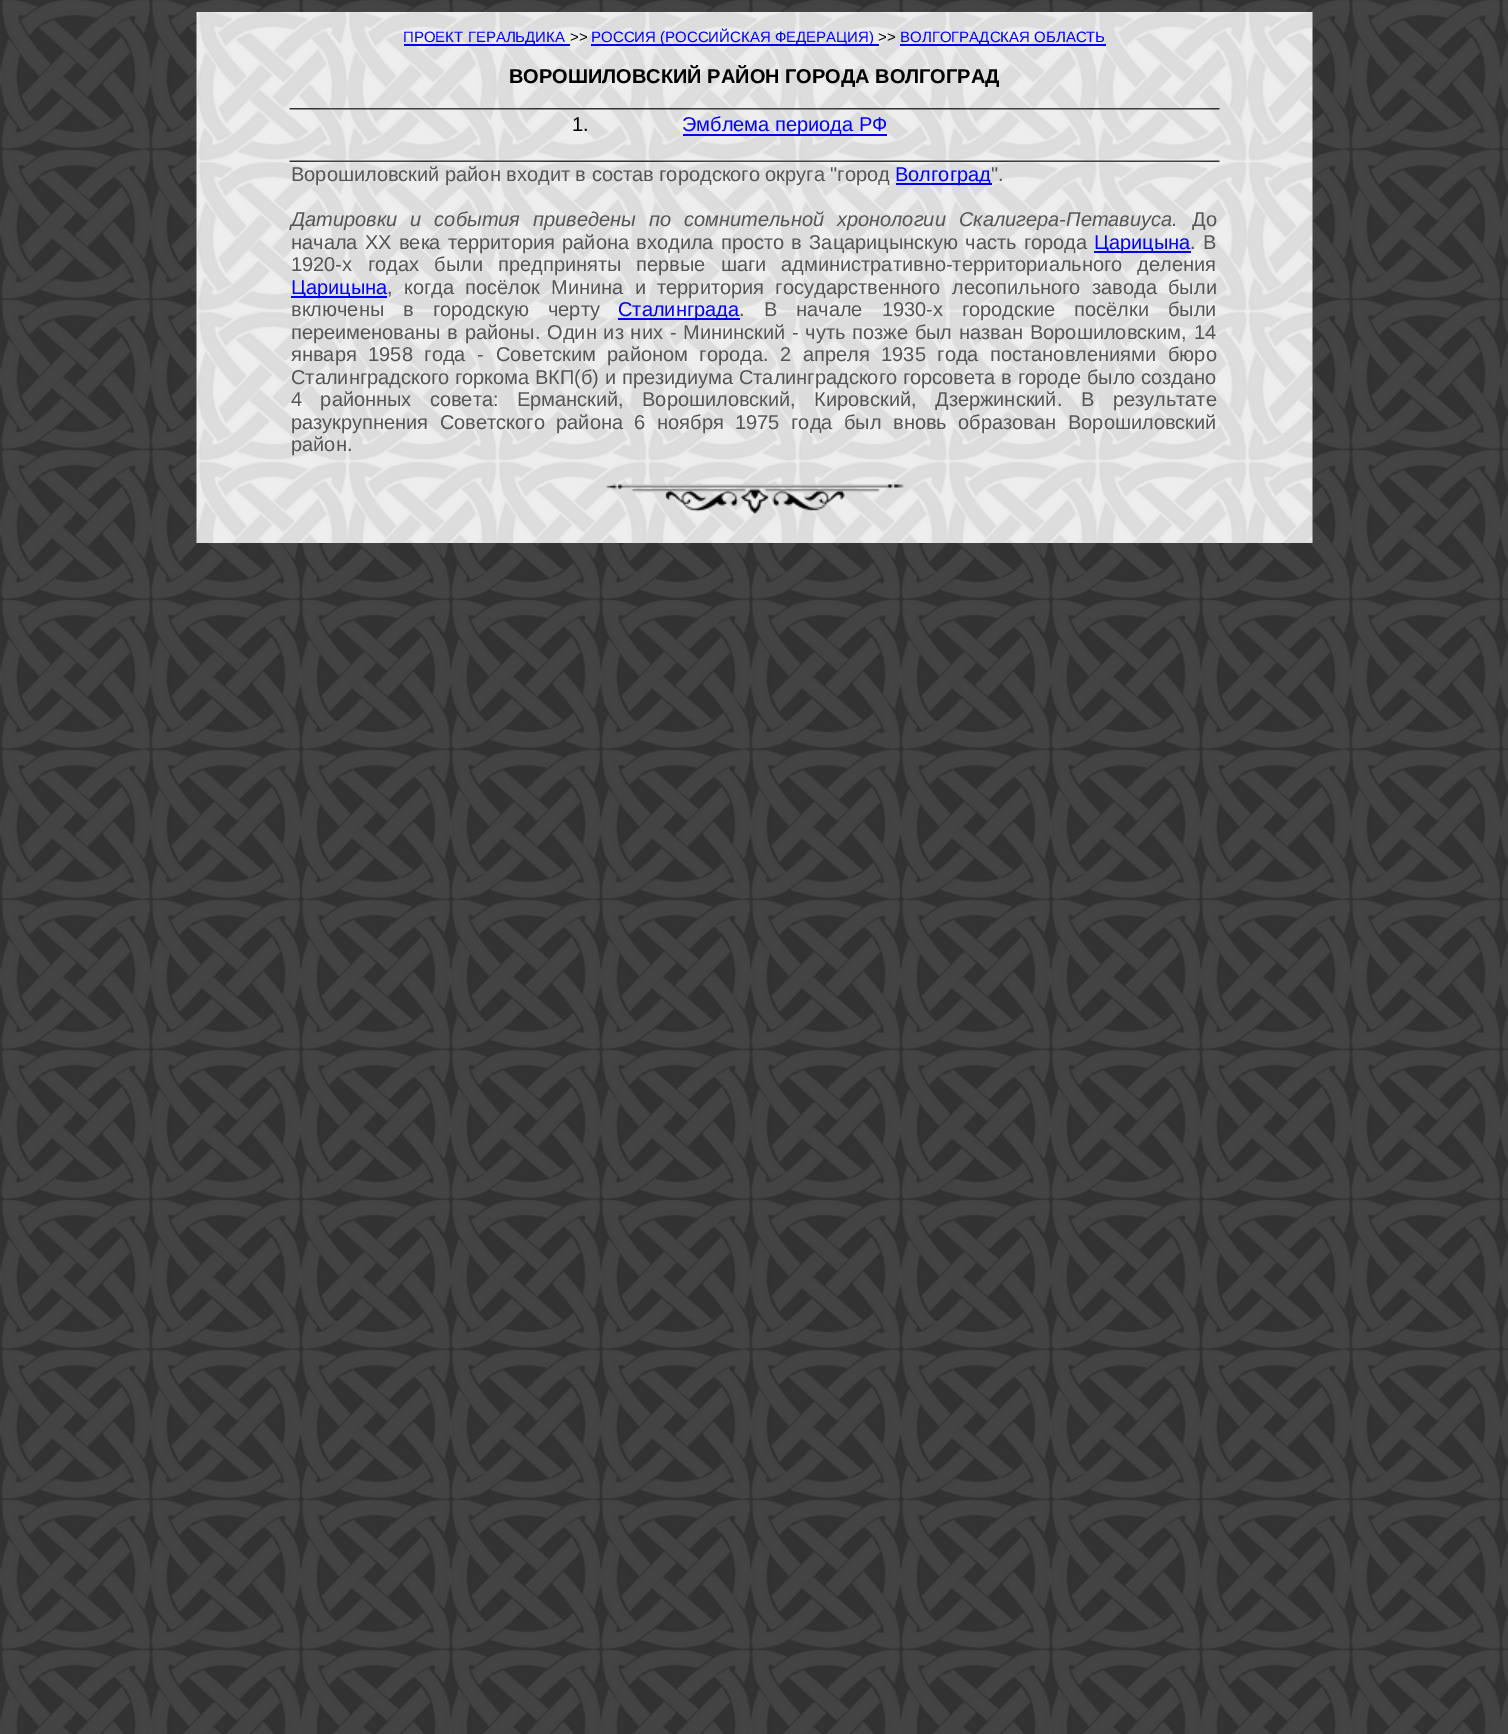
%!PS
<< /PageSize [1508 1734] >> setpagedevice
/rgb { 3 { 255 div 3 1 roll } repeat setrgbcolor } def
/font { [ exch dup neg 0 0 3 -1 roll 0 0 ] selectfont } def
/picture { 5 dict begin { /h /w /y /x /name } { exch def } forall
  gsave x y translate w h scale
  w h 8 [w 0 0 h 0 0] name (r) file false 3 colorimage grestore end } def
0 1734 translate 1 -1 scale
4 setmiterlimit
255 255 255 rgb
0 0 1508 1734 rectfill
(img/1.rgb) 0 0 1508 1734 picture
(img/2.rgb) 196 12 1117 531 picture
[
  [404 44 166 2 0 0 255]
  [591 44 288 2 0 0 255]
  [900 44 206 2 0 0 255]
] { aload pop rgb rectfill } forall
(img/3.rgb) 289 108 931 2 picture
683 134 204 2 rectfill
(img/4.rgb) 289 160 931 2 picture
[
  [896 183 96 2 0 0 255]
  [1094 251 97 2 0 0 255]
  [291 296 96 2 0 0 255]
  [618 318 122 2 0 0 255]
] { aload pop rgb rectfill } forall
(img/5.rgb) 606 484 299 31 picture
/LiberationSans-Regular 15 font
403 42 moveto (ПРОЕКТ ГЕРАЛЬДИКА) show
0 0 0 rgb
570 42 moveto (>>) show
0 0 255 rgb
591 42 moveto (РОССИЯ \(РОССИЙСКАЯ ФЕДЕРАЦИЯ\)) show
0 0 0 rgb
878 42 moveto (>>) show
0 0 255 rgb
900 42 moveto (ВОЛГОГРАДСКАЯ ОБЛАСТЬ) show
/LiberationSans-Bold 20 font
0 0 0 rgb
509 83 moveto (ВОРОШИЛОВСКИЙ РАЙОН ГОРОДА ВОЛГОГРАД) show
/LiberationSans-Regular 20 font
572 131 moveto (1.) show
0 0 255 rgb
682 131 moveto (Эмблема периода РФ) show
85 85 85 rgb
291 181 moveto (Ворошиловский район входит в состав городского округа "город) show
0 0 255 rgb
895 181 moveto (Волгоград) show
85 85 85 rgb
991 181 moveto (".) show
/LiberationSans-Italic 20 font
291 226 moveto 7.5 0 32 (Датировки и события приведены по сомнительной хронологии Скалигера-Петавиуса.) widthshow
/LiberationSans-Regular 20 font
1192 226 moveto (До) show
291 249 moveto 1.75 0 32 (начала XX века территория района входила просто в Зацарицынскую часть города) widthshow
0 0 255 rgb
1094 249 moveto (Царицына) show
85 85 85 rgb
1190 249 moveto 2 0 32 (. В) widthshow
291 271 moveto 10 0 32 (1920-х годах были) widthshow
498 271 moveto 9.5 0 32 (предприняты первые шаги административно-территориального деления) widthshow
0 0 255 rgb
291 294 moveto (Царицына) show
85 85 85 rgb
387 294 moveto 5.75 0 32 (, когда посёлок Минина и территория государственного) widthshow
952 294 moveto 5.75 0 32 (лесопильного завода были) widthshow
291 316 moveto 13.5 0 32 (включены в городскую черту) widthshow
0 0 255 rgb
618 316 moveto (Сталинграда) show
85 85 85 rgb
739 316 moveto 13.5 0 32 (. В начале 1930-х городские посёлки были) widthshow
291 339 moveto 1.25 0 32 (переименованы в районы. Один из них - Мининский - чуть позже был назван Ворошиловским,) widthshow
1194 339 moveto (14) show
291 361 moveto 6.1 0 32 (января 1958 года - Советским районом города. 2 апреля 1935 года постановлениями) widthshow
1168 361 moveto (бюро) show
291 384 moveto 0.25 0 32 (Сталинградского горкома ВКП\(б\) и президиума Сталинградского горсовета в городе) widthshow
1087 384 moveto (было создано) show
291 406 moveto 12.75 0 32 (4 районных совета: Ерманский, Ворошиловский, Кировский, Дзержинский.) widthshow
1081 406 moveto 12.75 0 32 (В результате) widthshow
291 429 moveto 6 0 32 (разукрупнения Советского района 6 ноября 1975 года был вновь образован) widthshow
1068 429 moveto (Ворошиловский) show
291 451 moveto (район.) show
showpage
